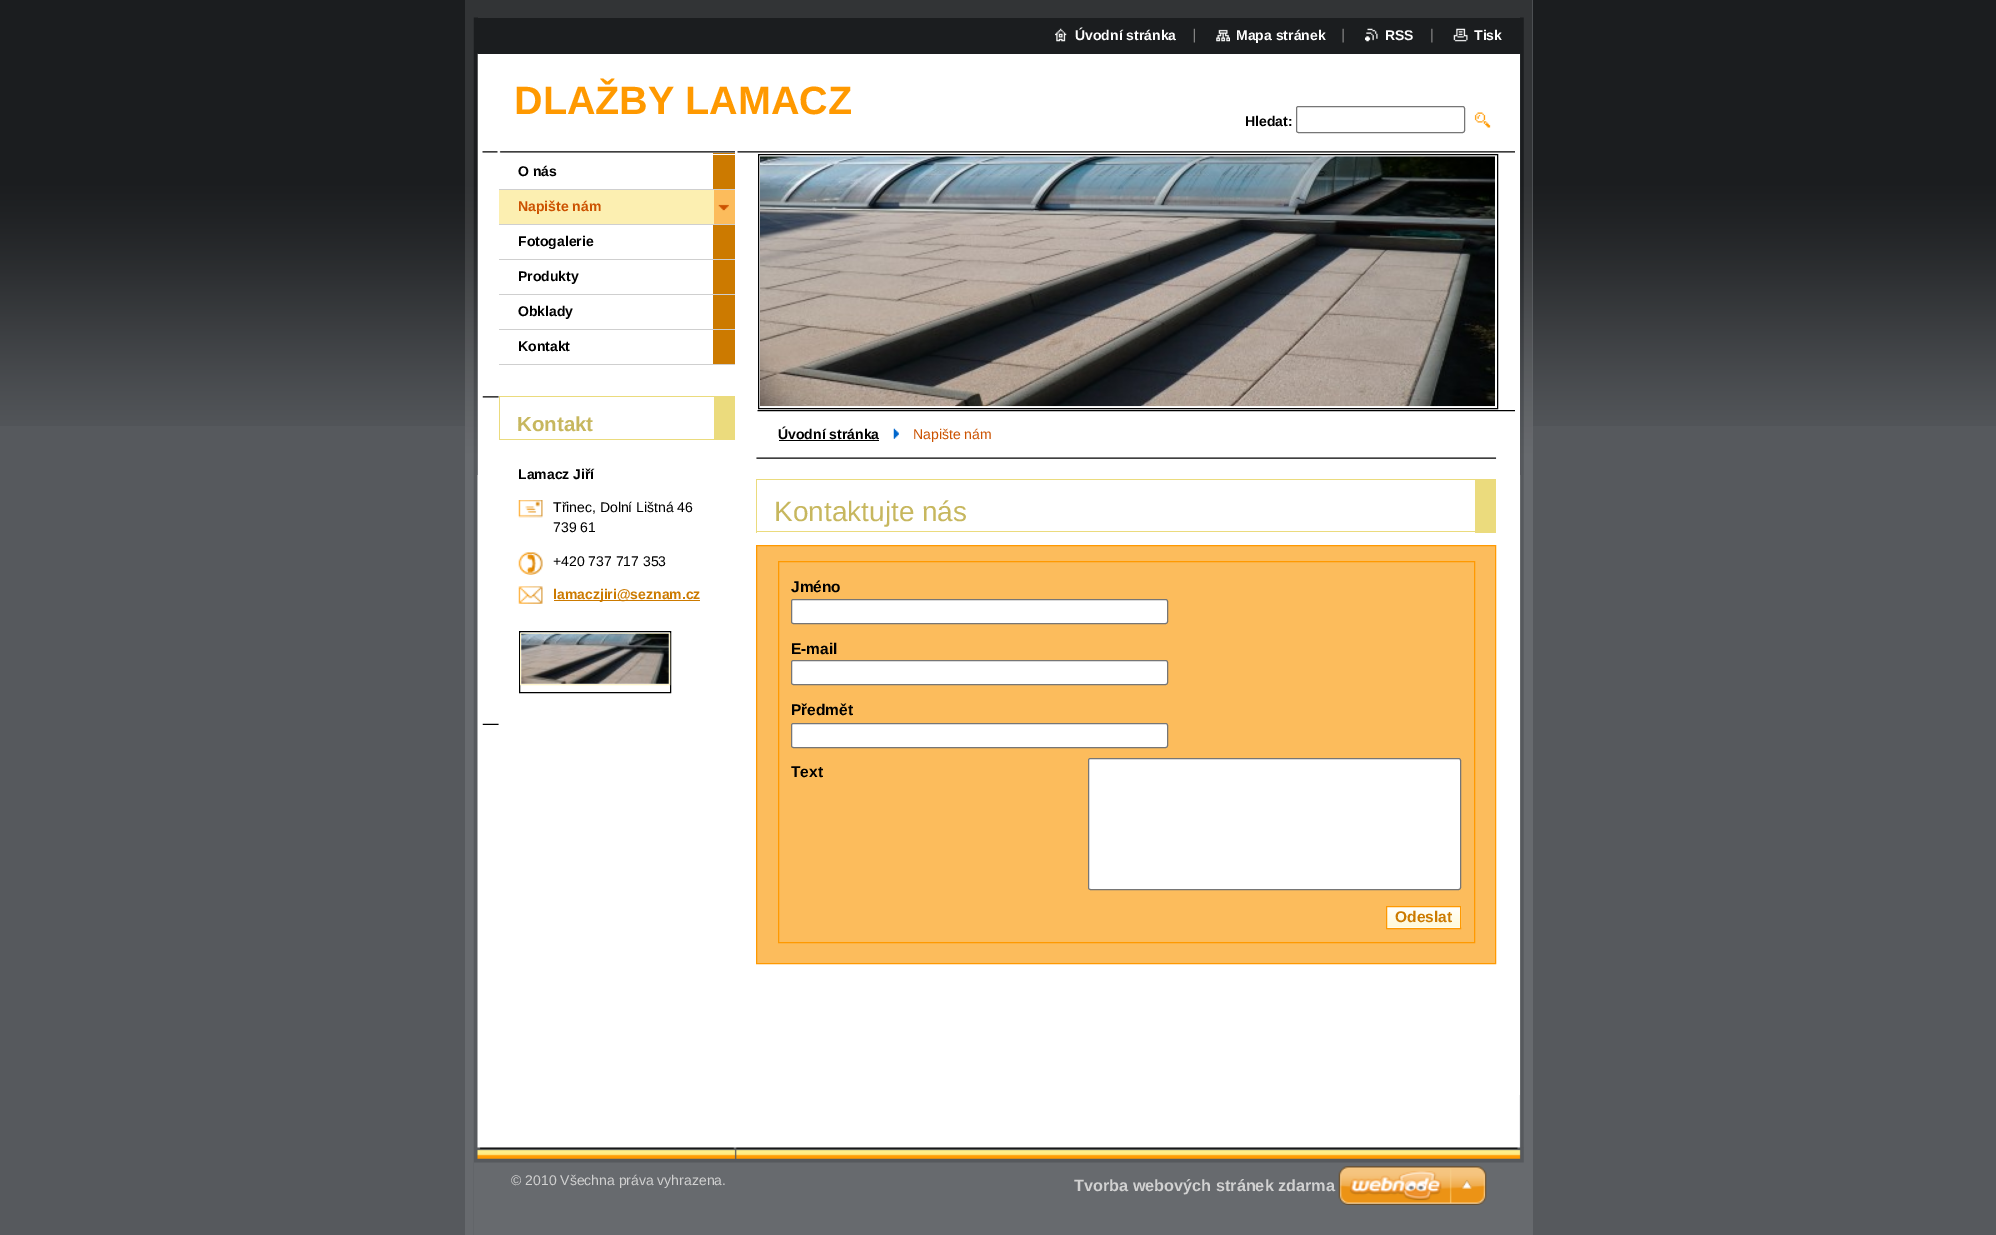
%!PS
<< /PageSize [1996 1235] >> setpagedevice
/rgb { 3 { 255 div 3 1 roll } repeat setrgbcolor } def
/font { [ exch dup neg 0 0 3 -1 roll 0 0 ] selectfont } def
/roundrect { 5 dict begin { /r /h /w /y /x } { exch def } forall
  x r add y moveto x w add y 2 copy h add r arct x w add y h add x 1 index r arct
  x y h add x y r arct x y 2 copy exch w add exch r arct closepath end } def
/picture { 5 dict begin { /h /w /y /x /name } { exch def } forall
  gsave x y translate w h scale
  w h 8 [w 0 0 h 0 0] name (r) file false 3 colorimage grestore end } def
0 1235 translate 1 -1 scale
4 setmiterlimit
86 89 93 rgb
0 0 1996 1235 rectfill
(img/1.rgb) 0 0 1996 426 picture
103 106 110 rgb
465 0 1068 1235 rectfill
(img/2.rgb) 473 53 1051 1182 picture
(img/3.rgb) 465 0 1068 475 picture
[
  [1519 54 1 1041 255 255 255]
  [478 17 1042 1 50 52 54]
  [478 53 1042 1 27 29 31]
] { aload pop rgb rectfill } forall
(img/4.rgb) 1055 28 12 14 picture
(img/5.rgb) 1193 28 2 15 picture
(img/6.rgb) 1216 29 14 13 picture
(img/7.rgb) 1342 28 2 15 picture
(img/8.rgb) 1365 28 13 14 picture
(img/9.rgb) 1431 28 2 15 picture
(img/10.rgb) 1453 28 15 14 picture
118 118 118 rgb
1296.5 106.5 168 26 2 roundrect stroke
(img/11.rgb) 1474 112 17 16 picture
(img/12.rgb) 482 151 253 2 picture
[
  [713 153 22 211 204 122 0]
  [713 154 22 1 255 255 255]
  [499 189 236 1 207 207 207]
] { aload pop rgb rectfill } forall
(img/13.rgb) 714 190 21 34 picture
[
  [499 224 236 1 207 207 207]
  [499 190 215 34 252 239 177]
  [499 259 236 1 207 207 207]
  [499 294 236 1 207 207 207]
  [499 329 236 1 207 207 207]
  [499 364 236 1 207 207 207]
] { aload pop rgb rectfill } forall
(img/14.rgb) 482 396 17 2 picture
[
  [499 396 215 1 235 219 125]
  [714 396 21 43 235 219 125]
  [499 439 236 1 235 219 125]
  [499 396 1 44 235 219 125]
] { aload pop rgb rectfill } forall
(img/15.rgb) 518 500 25 18 picture
(img/16.rgb) 518 552 25 23 picture
(img/17.rgb) 518 586 25 18 picture
204 122 0 rgb
554 600 146 1 rectfill
0 0 0 rgb
519.5 631.5 151 61 rectstroke
254 245 203 rgb
520.5 633.5 149 51 rectstroke
(img/18.rgb) 521 633 148 51 picture
(img/19.rgb) 482 723 17 2 picture
(img/20.rgb) 737 151 778 2 picture
(img/21.rgb) 757 410 758 2 picture
0 0 0 rgb
758.5 154.5 739 254 rectstroke
(img/22.rgb) 760 156 735 251 picture
(img/23.rgb) 756 457 741 2 picture
779 440 100 1 rectfill
(img/24.rgb) 893 428 6 11 picture
[
  [756 479 719 1 235 219 125]
  [1475 479 21 54 235 219 125]
  [756 531 719 1 235 219 125]
  [756 479 1 54 235 219 125]
] { aload pop rgb rectfill } forall
252 188 92 rgb
756.5 545.5 moveto 1495.5 545.5 lineto 1495.5 963.5 lineto 756.5 963.5 lineto closepath gsave fill grestore
255 153 0 rgb
stroke
778.5 561.5 696 381 rectstroke
255 255 255 rgb
791.5 599.5 376 24 2 roundrect gsave fill grestore
118 118 118 rgb
stroke
255 255 255 rgb
791.5 660.5 376 24 2 roundrect gsave fill grestore
118 118 118 rgb
stroke
255 255 255 rgb
791.5 723.5 376 24 2 roundrect gsave fill grestore
118 118 118 rgb
stroke
255 255 255 rgb
1088.5 758.5 372 131 2 roundrect gsave fill grestore
118 118 118 rgb
stroke
255 255 254 rgb
1387 927 73 1 rectfill
(img/25.rgb) 1387 906 75 22 picture
255 153 0 rgb
1386.5 906.5 74 22 rectstroke
103 106 110 rgb
474 1148 1050 87 rectfill
(img/26.rgb) 474 1147 1050 16 picture
(img/27.rgb) 1338 1166 149 39 picture
/LiberationSans-Bold 14 font
255 255 255 rgb
[
  [(Úvodní stránka) 1075 40]
  [(Mapa stránek) 1236 40]
  [(RSS) 1385 40]
  [(Tisk) 1474 40]
] { aload pop moveto show } forall
/LiberationSans-Bold 39.5 font
255 153 0 rgb
514 114 moveto (DLAŽBY LAMACZ) show
/LiberationSans-Bold 14 font
0 0 0 rgb
1245 126 moveto (Hledat:) show
518 176 moveto (O nás) show
204 82 0 rgb
518 211 moveto (Napište nám) show
0 0 0 rgb
[
  [(Fotogalerie) 518 246]
  [(Produkty) 518 281]
  [(Obklady) 518 316]
  [(Kontakt) 518 351]
] { aload pop moveto show } forall
/LiberationSans-Bold 20.5 font
199 183 94 rgb
517 431 moveto (Kontakt) show
/LiberationSans-Bold 14 font
0 0 0 rgb
518 479 moveto (Lamacz Jiří) show
/LiberationSans-Regular 14 font
[
  [(Třinec, Dolní Lištná 46) 553 512]
  [(739 61) 553 532]
  [(+420 737 717 353) 553 566]
] { aload pop moveto show } forall
/LiberationSans-Bold 14 font
204 122 0 rgb
553 599 moveto (lamaczjiri@seznam.cz) show
0 0 0 rgb
778 439 moveto (Úvodní stránka) show
/LiberationSans-Regular 14 font
204 82 0 rgb
913 439 moveto (Napište nám) show
/LiberationSans-Regular 28 font
199 183 94 rgb
774 521 moveto (Kontaktujte nás) show
/LiberationSans-Bold 15.5 font
0 0 0 rgb
[
  [(Jméno) 791 592]
  [(E-mail) 791 654]
  [(Předmět) 791 715]
  [(Text) 791 777]
] { aload pop moveto show } forall
204 122 0 rgb
1395 922 moveto (Odeslat) show
/LiberationSans-Regular 14 font
209 209 209 rgb
511 1185 moveto (© 2010 Všechna práva vyhrazena.) show
/LiberationSans-Bold 16.25 font
1074 1191 moveto (Tvorba webových stránek zdarma) show
showpage
